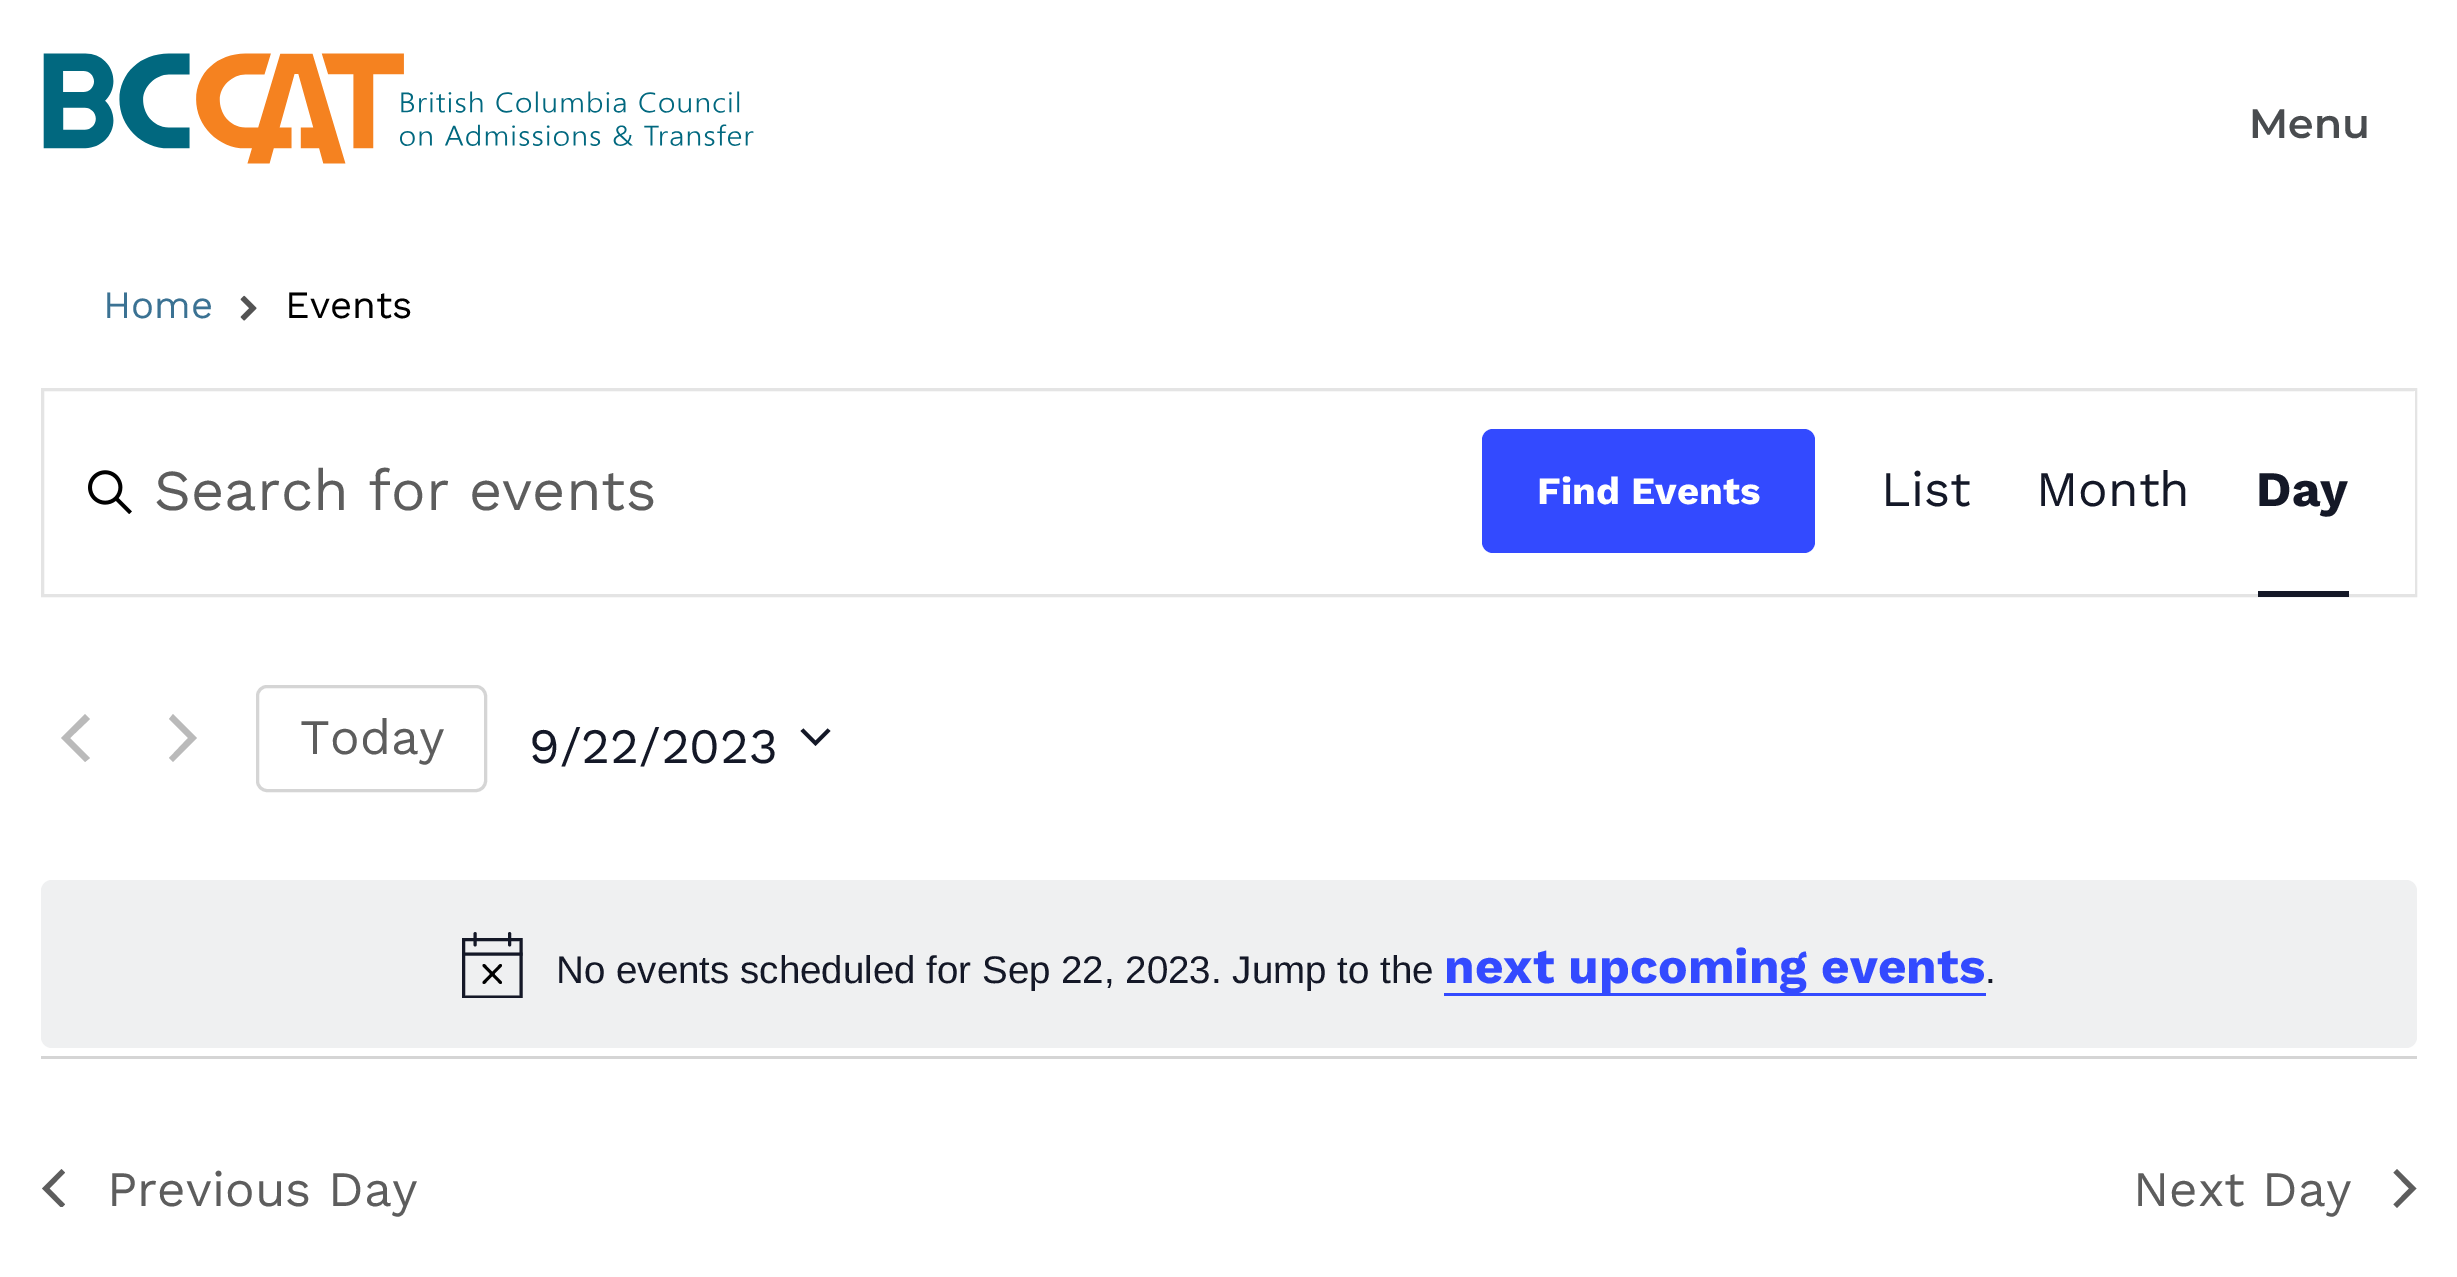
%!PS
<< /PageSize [2457 1277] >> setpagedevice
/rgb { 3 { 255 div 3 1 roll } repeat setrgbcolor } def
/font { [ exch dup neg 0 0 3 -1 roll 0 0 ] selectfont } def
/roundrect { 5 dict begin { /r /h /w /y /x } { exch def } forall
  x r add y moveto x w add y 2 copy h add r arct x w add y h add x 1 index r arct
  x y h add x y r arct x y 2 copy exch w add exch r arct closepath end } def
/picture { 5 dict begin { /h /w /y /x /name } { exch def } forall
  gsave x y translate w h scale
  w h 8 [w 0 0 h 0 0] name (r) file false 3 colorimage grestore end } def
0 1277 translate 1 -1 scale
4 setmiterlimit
255 255 255 rgb
0 0 2457 1277 rectfill
(img/1.rgb) 43 53 711 111 picture
(img/2.rgb) 240 295 17 26 picture
228 228 228 rgb
3 setlinewidth
42.5 389.5 2373 206 rectstroke
(img/3.rgb) 88 470 44 44 picture
51 74 255 rgb
1482 429 333 124 11 roundrect fill
255 255 255 rgb
2414 391 1 203 rectfill
20 24 39 rgb
2258 591 91 6 rectfill
186 186 186 rgb
90 758 moveto 85 762 lineto 61 738 lineto 85 714 lineto 90 719 lineto 70 738 lineto closepath fill
169 719 moveto 173 714 lineto 197 738 lineto 173 762 lineto 169 758 lineto 188 738 lineto closepath fill
213 213 213 rgb
257.5 686.5 228 104 9.5 roundrect stroke
20 24 39 rgb
803.5 728.5 moveto 815.5 740.5 lineto 827.5 728.5 lineto 830.5 731 lineto 815.5 746 lineto 800.5 731 lineto closepath eofill
239 240 241 rgb
41 880 2376 168 11 roundrect fill
gsave
462 932 61 66 rectclip
20 24 39 rgb
2.9 setlinewidth
463.5 939.5 moveto 521 939.5 lineto 521 997 lineto 463.5 997 lineto closepath stroke
grestore
0 0 0 rgb
2.9 setlinewidth
1 setlinecap
484 965.5 moveto 500.5 982.5 lineto 500.5 965.5 moveto 484 982.5 lineto stroke
20 24 39 rgb
475 933.5 moveto 475 945 lineto 509.5 933.5 moveto 509.5 945 lineto stroke
2 setlinecap
463.5 954 moveto 521 954 lineto stroke
51 74 255 rgb
1444 993 542 3 rectfill
213 213 213 rgb
41 1056 2376 3 rectfill
gsave
41 1169 25 38 rectclip
93 93 93 rgb
65 1204.5 moveto 61.5 1208 lineto 42 1188.5 lineto 61.5 1169 lineto 65 1172.5 lineto 49.5 1188.5 lineto closepath fill
grestore
93 93 93 rgb
2393.5 1172.5 moveto 2397 1169 lineto 2416.5 1188.5 lineto 2397 1208 lineto 2393.5 1204.5 lineto 2409 1188.5 lineto closepath fill
/Montserrat-SemiBold 41 font
73 76 79 rgb
2249 138 moveto (Menu) show
/WorkSans-Regular 38.5 font
59 114 147 rgb
103 318 moveto (Home) show
0 0 0 rgb
285 318 moveto (Events) show
/WorkSans-Regular 57.75 font
93 93 93 rgb
154 510 moveto (Search for events) show
/WorkSans-Bold 38.5 font
255 255 255 rgb
1537 504 moveto (Find Events) show
/WorkSans-Regular 49.5 font
20 24 39 rgb
1881 506 moveto (List) show
2036 506 moveto (Month) show
/WorkSans-Bold 49.5 font
2256 506 moveto (Day) show
/WorkSans-Regular 49.5 font
93 93 93 rgb
300 754 moveto (Today) show
20 24 39 rgb
529 763 moveto (9/22/2023) show
/LiberationSans-Regular 38.5 font
556 983 moveto (No events scheduled for Sep 22, 2023. Jump to the) show
/WorkSans-Bold 49.5 font
51 74 255 rgb
1444 983 moveto (next upcoming events) show
/LiberationSans-Regular 38.5 font
20 24 39 rgb
1985 983 moveto (.) show
/WorkSans-Regular 49.5 font
93 93 93 rgb
107 1206 moveto (Previous Day) show
2133 1206 moveto (Next Day) show
showpage
